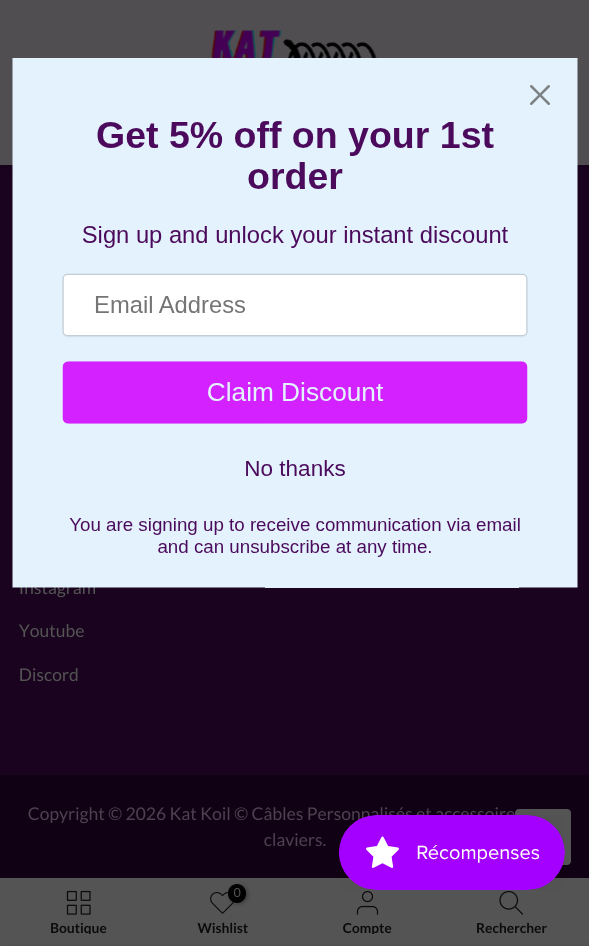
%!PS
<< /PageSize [589 946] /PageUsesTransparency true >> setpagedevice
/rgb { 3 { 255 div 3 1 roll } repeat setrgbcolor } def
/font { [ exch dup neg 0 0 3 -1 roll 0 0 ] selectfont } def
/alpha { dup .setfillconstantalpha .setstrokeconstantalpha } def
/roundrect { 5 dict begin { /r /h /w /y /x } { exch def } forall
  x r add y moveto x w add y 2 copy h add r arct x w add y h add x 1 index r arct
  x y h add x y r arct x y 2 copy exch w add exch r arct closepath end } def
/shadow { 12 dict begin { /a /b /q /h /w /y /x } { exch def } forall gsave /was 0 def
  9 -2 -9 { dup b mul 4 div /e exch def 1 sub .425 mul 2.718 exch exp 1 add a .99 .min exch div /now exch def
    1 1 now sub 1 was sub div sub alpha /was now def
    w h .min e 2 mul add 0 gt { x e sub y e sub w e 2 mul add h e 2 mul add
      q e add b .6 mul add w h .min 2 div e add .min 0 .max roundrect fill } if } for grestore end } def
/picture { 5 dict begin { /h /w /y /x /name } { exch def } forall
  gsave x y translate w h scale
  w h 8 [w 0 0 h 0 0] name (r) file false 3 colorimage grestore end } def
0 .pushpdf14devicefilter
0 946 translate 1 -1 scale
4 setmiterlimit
255 255 255 rgb
0 0 589 946 rectfill
75 10 91 rgb
0 165 589 610 rectfill
0 0 0 rgb
0 1 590 165 0 2 0.1 shadow
247 238 249 rgb
0 0 589 165 rectfill
(img/2.rgb) 211 30 166 28 picture
0 0 0 rgb
558 60 18 19 9 2 0.3 shadow
50 5 61 rgb
0 775 589 103 rectfill
0 0 0 rgb
515 809 56 56 4 2 0.2 shadow
255 255 255 rgb
515 809 56 56 4 roundrect fill
(img/4.rgb) 66 890 25 25 picture
(img/5.rgb) 210 892 24 22 picture
0 0 0 rgb
229 885 19 19 9.5 2 0.3 shadow
228 884 18 19 9 roundrect fill
(img/6.rgb) 356 890 23 25 picture
(img/7.rgb) 499 890 25 25 picture
0 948 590 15 0 5.5 0.14 shadow
/Lato-Regular 17.5 font
255 255 255 rgb
19 637 moveto (Youtube) show
19 681 moveto (Discord) show
237 196 242 rgb
28 820 moveto (Copyright © 2026 Kat Koil © Câbles Person) show
264 846 moveto (claviers.) show
gsave
19 920 120 14 rectclip
/Lato-Bold 13.75 font
34 34 34 rgb
50 933 moveto (Boutique) show
grestore
/Lato-Regular 12 font
255 255 255 rgb
234 897 moveto (0) show
/Lato-Bold 13.75 font
34 34 34 rgb
197 933 moveto (Wishlist) show
gsave
308 920 120 14 rectclip
343 933 moveto (Compte) show
grestore
476 933 moveto (Rechercher) show
(img/1.rgb) 0 0 589 946 picture
(img/3.rgb) 339 815 226 75 picture
.poppdf14devicefilter showpage
